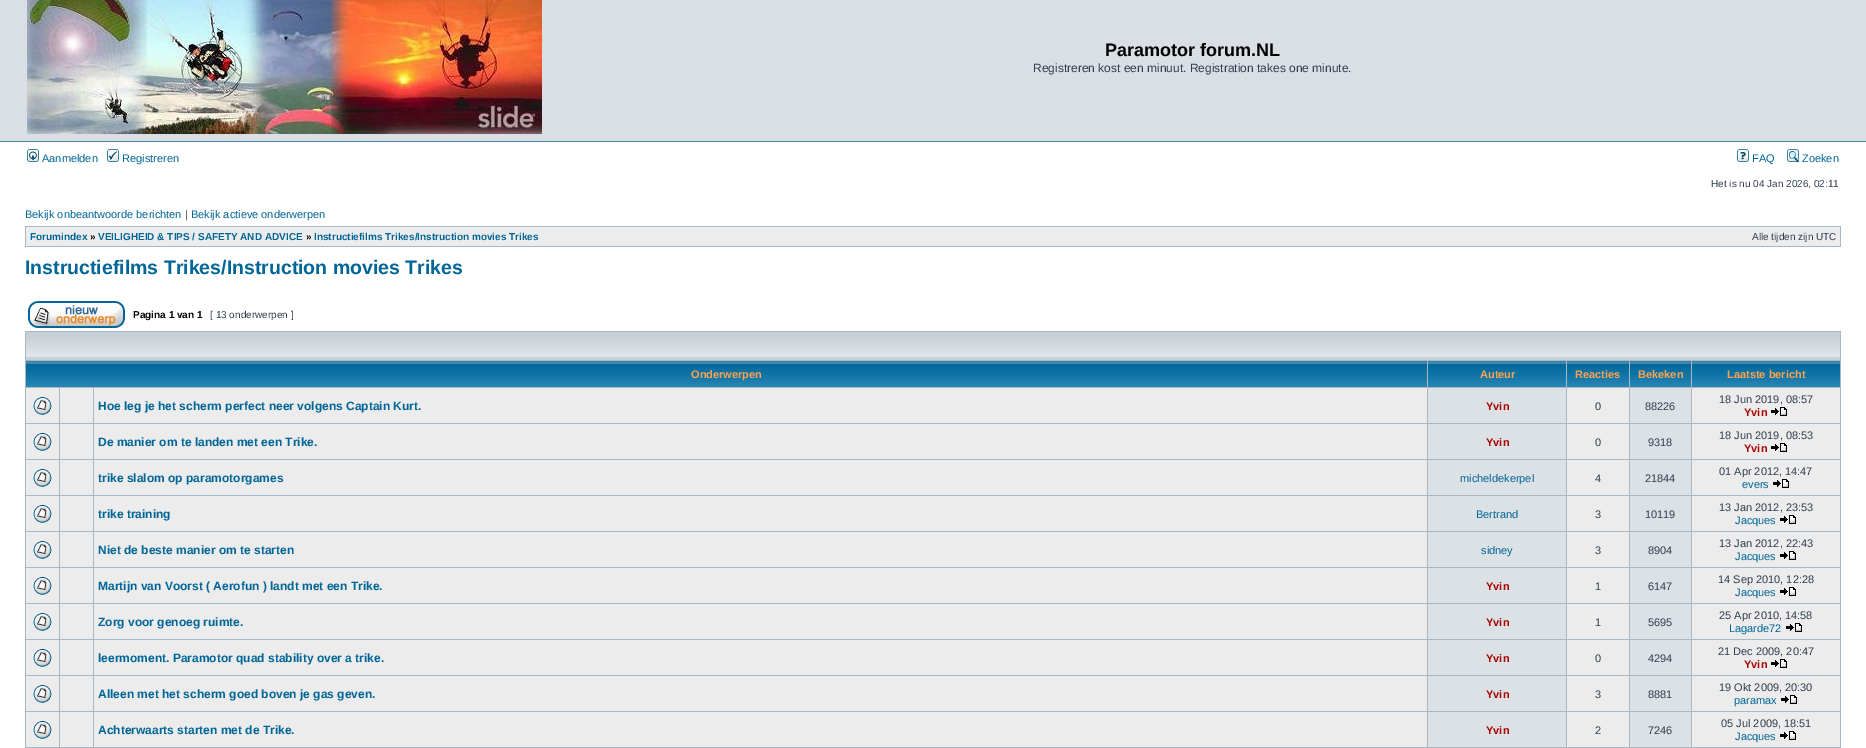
%!PS
<< /PageSize [1866 748] >> setpagedevice
/rgb { 3 { 255 div 3 1 roll } repeat setrgbcolor } def
/font { [ exch dup neg 0 0 3 -1 roll 0 0 ] selectfont } def
/picture { 5 dict begin { /h /w /y /x /name } { exch def } forall
  gsave x y translate w h scale
  w h 8 [w 0 0 h 0 0] name (r) file false 3 colorimage grestore end } def
0 748 translate 1 -1 scale
4 setmiterlimit
255 255 255 rgb
0 0 1866 748 rectfill
217 223 228 rgb
0 0 1866 141 rectfill
71 135 167 rgb
0 141 1866 1 rectfill
(img/1.rgb) 27 0 515 134 picture
(img/2.rgb) 27 149 12 13 picture
(img/3.rgb) 107 149 12 13 picture
(img/4.rgb) 1737 149 12 13 picture
(img/5.rgb) 1787 149 12 13 picture
169 184 194 rgb
25 226 1816 21 rectfill
236 236 236 rgb
26 227 1814 19 rectfill
(img/6.rgb) 28 301 97 27 picture
169 184 194 rgb
25 331 1816 417 rectfill
199 208 215 rgb
26 332 1814 28 rectfill
(img/7.rgb) 26 338 1814 19 picture
(img/8.rgb) 26 361 1401 26 picture
(img/9.rgb) 1428 361 138 26 picture
(img/10.rgb) 1567 361 62 26 picture
(img/11.rgb) 1630 361 61 26 picture
(img/12.rgb) 1692 361 148 26 picture
236 236 236 rgb
26 388 33 35 rectfill
(img/13.rgb) 33 397 19 18 picture
[
  [60 388 33 35 236 236 236]
  [94 388 1333 35 236 236 236]
  [1428 388 138 35 220 225 229]
  [1567 388 62 35 236 236 236]
  [1630 388 61 35 220 225 229]
  [1692 388 148 35 236 236 236]
] { aload pop rgb rectfill } forall
(img/14.rgb) 1771 407 16 9 picture
26 424 33 35 rectfill
(img/13.rgb) 33 433 19 18 picture
[
  [60 424 33 35 236 236 236]
  [94 424 1333 35 236 236 236]
  [1428 424 138 35 220 225 229]
  [1567 424 62 35 236 236 236]
  [1630 424 61 35 220 225 229]
  [1692 424 148 35 236 236 236]
] { aload pop rgb rectfill } forall
(img/14.rgb) 1771 443 16 9 picture
26 460 33 35 rectfill
(img/13.rgb) 33 469 19 18 picture
[
  [60 460 33 35 236 236 236]
  [94 460 1333 35 236 236 236]
  [1428 460 138 35 220 225 229]
  [1567 460 62 35 236 236 236]
  [1630 460 61 35 220 225 229]
  [1692 460 148 35 236 236 236]
] { aload pop rgb rectfill } forall
(img/14.rgb) 1773 479 16 9 picture
26 496 33 35 rectfill
(img/13.rgb) 33 505 19 18 picture
[
  [60 496 33 35 236 236 236]
  [94 496 1333 35 236 236 236]
  [1428 496 138 35 220 225 229]
  [1567 496 62 35 236 236 236]
  [1630 496 61 35 220 225 229]
  [1692 496 148 35 236 236 236]
] { aload pop rgb rectfill } forall
(img/14.rgb) 1780 515 16 9 picture
26 532 33 35 rectfill
(img/13.rgb) 33 541 19 18 picture
[
  [60 532 33 35 236 236 236]
  [94 532 1333 35 236 236 236]
  [1428 532 138 35 220 225 229]
  [1567 532 62 35 236 236 236]
  [1630 532 61 35 220 225 229]
  [1692 532 148 35 236 236 236]
] { aload pop rgb rectfill } forall
(img/14.rgb) 1780 551 16 9 picture
26 568 33 35 rectfill
(img/13.rgb) 33 577 19 18 picture
[
  [60 568 33 35 236 236 236]
  [94 568 1333 35 236 236 236]
  [1428 568 138 35 220 225 229]
  [1567 568 62 35 236 236 236]
  [1630 568 61 35 220 225 229]
  [1692 568 148 35 236 236 236]
] { aload pop rgb rectfill } forall
(img/14.rgb) 1780 587 16 9 picture
26 604 33 35 rectfill
(img/13.rgb) 33 613 19 18 picture
[
  [60 604 33 35 236 236 236]
  [94 604 1333 35 236 236 236]
  [1428 604 138 35 220 225 229]
  [1567 604 62 35 236 236 236]
  [1630 604 61 35 220 225 229]
  [1692 604 148 35 236 236 236]
] { aload pop rgb rectfill } forall
(img/14.rgb) 1786 623 16 9 picture
26 640 33 35 rectfill
(img/13.rgb) 33 649 19 18 picture
[
  [60 640 33 35 236 236 236]
  [94 640 1333 35 236 236 236]
  [1428 640 138 35 220 225 229]
  [1567 640 62 35 236 236 236]
  [1630 640 61 35 220 225 229]
  [1692 640 148 35 236 236 236]
] { aload pop rgb rectfill } forall
(img/14.rgb) 1771 659 16 9 picture
26 676 33 35 rectfill
(img/13.rgb) 33 685 19 18 picture
[
  [60 676 33 35 236 236 236]
  [94 676 1333 35 236 236 236]
  [1428 676 138 35 220 225 229]
  [1567 676 62 35 236 236 236]
  [1630 676 61 35 220 225 229]
  [1692 676 148 35 236 236 236]
] { aload pop rgb rectfill } forall
(img/14.rgb) 1781 695 16 9 picture
26 712 33 35 rectfill
(img/13.rgb) 33 721 19 18 picture
[
  [60 712 33 35 236 236 236]
  [94 712 1333 35 236 236 236]
  [1428 712 138 35 220 225 229]
  [1567 712 62 35 236 236 236]
  [1630 712 61 35 220 225 229]
  [1692 712 148 35 236 236 236]
] { aload pop rgb rectfill } forall
(img/14.rgb) 1780 731 16 9 picture
/LiberationSans-Bold 18 font
0 0 0 rgb
1105 56 moveto (Paramotor forum.NL) show
/LiberationSans-Regular 12 font
50 61 79 rgb
1033 72 moveto (Registreren kost een minuut. Registration takes one minute.) show
/LiberationSans-Regular 11 font
0 101 151 rgb
[
  [(Aanmelden) 42 162]
  [(Registreren) 122 162]
  [(FAQ) 1752 162]
  [(Zoeken) 1802 162]
] { aload pop moveto show } forall
/LiberationSans-Regular 10 font
50 61 79 rgb
1711 187 moveto (Het is nu 04 Jan 2026, 02:11) show
/LiberationSans-Regular 11 font
0 101 151 rgb
25 218 moveto (Bekijk onbeantwoorde berichten) show
50 61 79 rgb
185 218 moveto (|) show
0 101 151 rgb
191 218 moveto (Bekijk actieve onderwerpen) show
/LiberationSans-Bold 10 font
30 240 moveto (Forumindex) show
0 0 0 rgb
90 240 moveto (») show
0 101 151 rgb
98 240 moveto (VEILIGHEID & TIPS / SAFETY AND ADVICE) show
0 0 0 rgb
306 240 moveto (») show
0 101 151 rgb
314 240 moveto (Instructiefilms Trikes/Instruction movies Trikes) show
/LiberationSans-Regular 10 font
50 61 79 rgb
1752 240 moveto (Alle tijden zijn UTC) show
/LiberationSans-Bold 19.5 font
0 101 151 rgb
25 274 moveto (Instructiefilms Trikes/Instruction movies Trikes) show
/LiberationSans-Bold 10 font
0 0 0 rgb
133 318 moveto (Pagina 1 van 1) show
/LiberationSans-Regular 10 font
50 61 79 rgb
210 318 moveto ([ 13 onderwerpen ]) show
/LiberationSans-Bold 11 font
255 163 79 rgb
[
  [(Onderwerpen) 691 378]
  [(Auteur) 1480 378]
  [(Reacties) 1575 378]
  [(Bekeken) 1638 378]
  [(Laatste bericht) 1727 378]
] { aload pop moveto show } forall
/LiberationSans-Bold 12 font
0 101 151 rgb
98 410 moveto (Hoe leg je het scherm perfect neer volgens Captain Kurt.) show
/LiberationSans-Bold 11 font
170 0 0 rgb
1486 410 moveto (Yvin) show
/LiberationSans-Regular 11 font
50 61 79 rgb
[
  [(0) 1595 410]
  [(88226) 1645 410]
  [(18 Jun 2019, 08:57) 1719 403]
] { aload pop moveto show } forall
/LiberationSans-Bold 11 font
170 0 0 rgb
1744 416 moveto (Yvin) show
/LiberationSans-Bold 12 font
0 101 151 rgb
98 446 moveto (De manier om te landen met een Trike.) show
/LiberationSans-Bold 11 font
170 0 0 rgb
1486 446 moveto (Yvin) show
/LiberationSans-Regular 11 font
50 61 79 rgb
[
  [(0) 1595 446]
  [(9318) 1648 446]
  [(18 Jun 2019, 08:53) 1719 439]
] { aload pop moveto show } forall
/LiberationSans-Bold 11 font
170 0 0 rgb
1744 452 moveto (Yvin) show
/LiberationSans-Bold 12 font
0 101 151 rgb
98 482 moveto (trike slalom op paramotorgames) show
/LiberationSans-Regular 11 font
1460 482 moveto (micheldekerpel) show
50 61 79 rgb
[
  [(4) 1595 482]
  [(21844) 1645 482]
  [(01 Apr 2012, 14:47) 1719 475]
] { aload pop moveto show } forall
0 101 151 rgb
1742 488 moveto (evers) show
/LiberationSans-Bold 12 font
98 518 moveto (trike training) show
/LiberationSans-Regular 11 font
1476 518 moveto (Bertrand) show
50 61 79 rgb
[
  [(3) 1595 518]
  [(10119) 1645 518]
  [(13 Jan 2012, 23:53) 1719 511]
] { aload pop moveto show } forall
0 101 151 rgb
1735 524 moveto (Jacques) show
/LiberationSans-Bold 12 font
98 554 moveto (Niet de beste manier om te starten) show
/LiberationSans-Regular 11 font
1481 554 moveto (sidney) show
50 61 79 rgb
[
  [(3) 1595 554]
  [(8904) 1648 554]
  [(13 Jan 2012, 22:43) 1719 547]
] { aload pop moveto show } forall
0 101 151 rgb
1735 560 moveto (Jacques) show
/LiberationSans-Bold 12 font
98 590 moveto (Martijn van Voorst \( Aerofun \) landt met een Trike.) show
/LiberationSans-Bold 11 font
170 0 0 rgb
1486 590 moveto (Yvin) show
/LiberationSans-Regular 11 font
50 61 79 rgb
[
  [(1) 1595 590]
  [(6147) 1648 590]
  [(14 Sep 2010, 12:28) 1718 583]
] { aload pop moveto show } forall
0 101 151 rgb
1735 596 moveto (Jacques) show
/LiberationSans-Bold 12 font
98 626 moveto (Zorg voor genoeg ruimte.) show
/LiberationSans-Bold 11 font
170 0 0 rgb
1486 626 moveto (Yvin) show
/LiberationSans-Regular 11 font
50 61 79 rgb
[
  [(1) 1595 626]
  [(5695) 1648 626]
  [(25 Apr 2010, 14:58) 1719 619]
] { aload pop moveto show } forall
0 101 151 rgb
1729 632 moveto (Lagarde72) show
/LiberationSans-Bold 12 font
98 662 moveto (leermoment. Paramotor quad stability over a trike.) show
/LiberationSans-Bold 11 font
170 0 0 rgb
1486 662 moveto (Yvin) show
/LiberationSans-Regular 11 font
50 61 79 rgb
[
  [(0) 1595 662]
  [(4294) 1648 662]
  [(21 Dec 2009, 20:47) 1718 655]
] { aload pop moveto show } forall
/LiberationSans-Bold 11 font
170 0 0 rgb
1744 668 moveto (Yvin) show
/LiberationSans-Bold 12 font
0 101 151 rgb
98 698 moveto (Alleen met het scherm goed boven je gas geven.) show
/LiberationSans-Bold 11 font
170 0 0 rgb
1486 698 moveto (Yvin) show
/LiberationSans-Regular 11 font
50 61 79 rgb
[
  [(3) 1595 698]
  [(8881) 1648 698]
  [(19 Okt 2009, 20:30) 1719 691]
] { aload pop moveto show } forall
0 101 151 rgb
1734 704 moveto (paramax) show
/LiberationSans-Bold 12 font
98 734 moveto (Achterwaarts starten met de Trike.) show
/LiberationSans-Bold 11 font
170 0 0 rgb
1486 734 moveto (Yvin) show
/LiberationSans-Regular 11 font
50 61 79 rgb
[
  [(2) 1595 734]
  [(7246) 1648 734]
  [(05 Jul 2009, 18:51) 1721 727]
] { aload pop moveto show } forall
0 101 151 rgb
1735 740 moveto (Jacques) show
showpage
